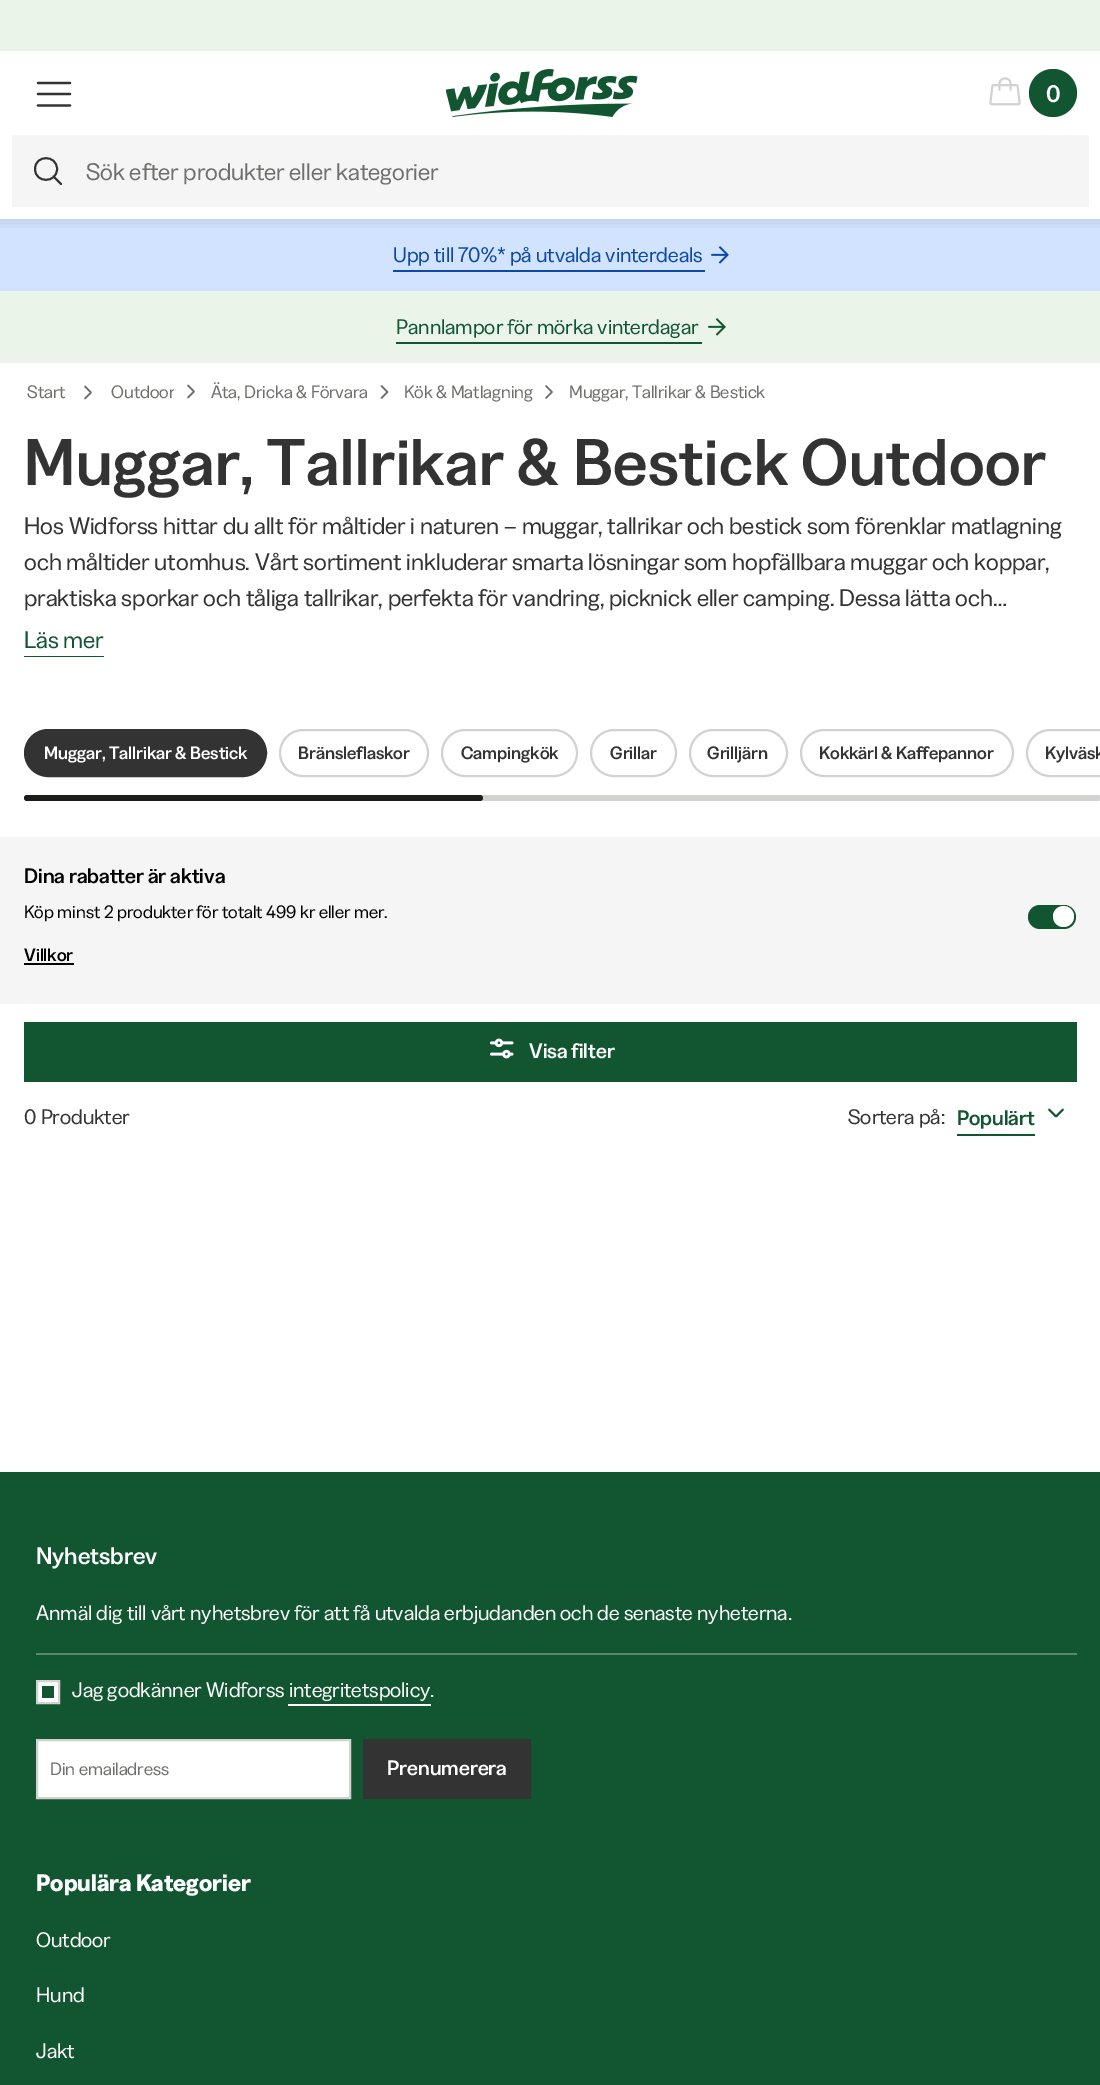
%!PS
<< /PageSize [1100 2085] /PageUsesTransparency true >> setpagedevice
/rgb { 3 { 255 div 3 1 roll } repeat setrgbcolor } def
/font { [ exch dup neg 0 0 3 -1 roll 0 0 ] selectfont } def
/alpha { dup .setfillconstantalpha .setstrokeconstantalpha } def
/circle { newpath 0 360 arc closepath } def
/roundrect { 5 dict begin { /r /h /w /y /x } { exch def } forall
  x r add y moveto x w add y 2 copy h add r arct x w add y h add x 1 index r arct
  x y h add x y r arct x y 2 copy exch w add exch r arct closepath end } def
/shadow { 12 dict begin { /a /b /q /h /w /y /x } { exch def } forall gsave /was 0 def
  9 -2 -9 { dup b mul 4 div /e exch def 1 sub .425 mul 2.718 exch exp 1 add a .99 .min exch div /now exch def
    1 1 now sub 1 was sub div sub alpha /was now def
    w h .min e 2 mul add 0 gt { x e sub y e sub w e 2 mul add h e 2 mul add
      q e add b .6 mul add w h .min 2 div e add .min 0 .max roundrect fill } if } for grestore end } def
/picture { 5 dict begin { /h /w /y /x /name } { exch def } forall
  gsave x y translate w h scale
  w h 8 [w 0 0 h 0 0] name (r) file false 3 colorimage grestore end } def
0 .pushpdf14devicefilter
0 2085 translate 1 -1 scale
4 setmiterlimit
255 255 255 rgb
0 0 1100 2085 rectfill
209 227 255 rgb
0 219 1100 72 rectfill
gsave
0 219 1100 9 rectclip
0 0 0 rgb
-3 48 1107 174 0 7.5 0.1 shadow
grestore
235 244 233 rgb
0 0 1100 51 rectfill
51 51 51 rgb
2.2 setlinewidth
1 setlinecap
1 setlinejoin
38 105.5 moveto 70 105.5 lineto 38 94 moveto 70 94 lineto 38 83 moveto 70 83 lineto stroke
(img/1.rgb) 446 69 192 48 picture
(img/2.rgb) 989 77 32 29 picture
18 85 49 rgb
1053 93 24 circle fill
245 245 245 rgb
12 135 1077 72 rectfill
51 51 51 rgb
1.9 setlinewidth
61 184 moveto 53.5 176.5 lineto 57 169 moveto 57 183.5 35 183.5 35 169 curveto 35 154.5 57 154.5 57 169 curveto stroke
13 73 165 rgb
393 270 312 2 rectfill
(img/3.rgb) 711 246 18 18 picture
235 244 233 rgb
0 291 1100 72 rectfill
18 85 49 rgb
396 342 306 2 rectfill
(img/4.rgb) 708 318 18 18 picture
111 111 109 rgb
1.5 setlinewidth
85 398.5 moveto 91 392.5 lineto 85 386.5 lineto stroke
188 397.5 moveto 194 391.5 lineto 188 385.5 lineto stroke
381.5 398 moveto 387.5 392 lineto 381.5 386 lineto stroke
546 398 moveto 552 392 lineto 546 386 lineto stroke
18 85 49 rgb
24 656 80 1 rectfill
51 51 51 rgb
25 730 241 46 23 roundrect gsave fill grestore
2 setlinewidth
0 setlinecap
0 setlinejoin
stroke
210 210 209 rgb
280 730 148 46 23 roundrect stroke
442 730 135 46 23 roundrect stroke
591 730 85 46 23 roundrect stroke
690 730 97 46 23 roundrect stroke
801 730 212 46 23 roundrect stroke
1027 730 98 46 23 roundrect stroke
24 795 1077 6 3 roundrect fill
29 29 27 rgb
24 795 459 6 3 roundrect fill
245 245 245 rgb
0 837 1100 167 rectfill
0 0 0 rgb
24 963 50 2 rectfill
18 85 49 rgb
1028 905 48 24 12 roundrect fill
255 255 255 rgb
1063.5 916.5 10.5 circle fill
18 85 49 rgb
24 1022 1053 60 rectfill
(img/5.rgb) 490 1038 24 21 picture
957 1134 78 2 rectfill
1.8 setlinewidth
1 setlinecap
1 setlinejoin
1049 1109.5 moveto 1056 1116.5 lineto 1063 1109.5 lineto stroke
0 1472 1100 613 rectfill
89 136 111 rgb
36 1653 1041 2 rectfill
255 255 255 rgb
37 1681 moveto 59 1681 lineto 59 1703 lineto 37 1703 lineto closepath gsave fill grestore
210 210 209 rgb
2 setlinewidth
0 setlinecap
0 setlinejoin
stroke
255 255 255 rgb
288 1704 143 2 rectfill
18 85 49 rgb
42 1686 12 12 rectfill
255 255 255 rgb
37 1740 moveto 350 1740 lineto 350 1798 lineto 37 1798 lineto closepath gsave fill grestore
210 210 209 rgb
stroke
51 51 51 rgb
363 1739 168 60 rectfill
/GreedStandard-Medium 24 font
255 255 255 rgb
1046 102 moveto (0) show
/GreedStandard-Regular 24 font
111 111 109 rgb
86 180 moveto (Sök efter produkter eller kategorier) show
/GreedStandard-Regular 21 font
13 73 165 rgb
393 262 moveto (Upp till 70%* på utvalda vinterdeals) show
18 85 49 rgb
396 334 moveto (Pannlampor för mörka vinterdagar) show
/GreedStandard-Regular 18 font
111 111 109 rgb
27 398 moveto (Start) show
111 398 moveto (Outdoor) show
255 255 255 rgb
174 389 1 2 rectfill
111 111 109 rgb
[
  [(Äta, Dricka & Förvara) 211 398]
  [(Kök & Matlagning) 404 398]
  [(Muggar, Tallrikar & Bestick) 569 398]
] { aload pop moveto show } forall
/GreedStandard-Medium 66 font
51 51 51 rgb
24 485 moveto 0.65 0 (Muggar, Tallrikar & Bestick Outdoor) ashow
/GreedStandard-Regular 24 font
[
  [(Hos Widforss hittar du allt för måltider i naturen – muggar, tallrikar och bestick som förenklar matlagning) 24 534]
  [(och måltider utomhus. Vårt sortiment inkluderar smarta lösningar som hopfällbara muggar och koppar,) 24 570]
  [(praktiska sporkar och tåliga tallrikar, perfekta för vandring, picknick eller camping. Dessa lätta och…) 24 606]
] { aload pop moveto show } forall
18 85 49 rgb
24 648 moveto (Läs mer) show
/GreedStandard-Medium 18 font
255 255 255 rgb
44 759 moveto (Muggar, Tallrikar & Bestick) show
51 51 51 rgb
[
  [(Bränsleflaskor) 298 759]
  [(Campingkök) 461 759]
  [(Grillar) 610 759]
  [(Grilljärn) 707 759]
  [(Kokkärl & Kaffepannor) 819 759]
  [(Kylväsk) 1045 759]
] { aload pop moveto show } forall
/GreedStandard-Medium 21 font
0 0 0 rgb
24 883 moveto (Dina rabatter är aktiva) show
/GreedStandard-Regular 18 font
24 918 moveto (Köp minst 2 produkter för totalt 499 kr eller mer.) show
/GreedStandard-Medium 18 font
24 961 moveto (Villkor) show
/GreedStandard-Medium 21 font
255 255 255 rgb
529 1058 moveto (Visa filter) show
/GreedStandard-Regular 21 font
51 51 51 rgb
24 1124 moveto (0 Produkter) show
848 1124 moveto (Sortera på:) show
/GreedStandard-Medium 21 font
18 85 49 rgb
957 1125 moveto (Populärt) show
/GreedStandard-Medium 24 font
255 255 255 rgb
36 1564 moveto (Nyhetsbrev) show
/GreedStandard-Regular 21 font
36 1620 moveto (Anmäl dig till vårt nyhetsbrev för att få utvalda erbjudanden och de senaste nyheterna.) show
72 1697 moveto (Jag godkänner Widforss integritetspolicy.) show
/GreedStandard-Regular 18 font
111 111 109 rgb
50 1775 moveto (Din emailadress) show
/GreedStandard-Medium 21 font
255 255 255 rgb
387 1775 moveto (Prenumerera) show
/GreedStandard-Bold 24 font
36 1891 moveto (Populära Kategorier) show
/GreedStandard-Regular 21 font
[
  [(Outdoor) 36 1947]
  [(Hund) 36 2002]
  [(Jakt) 36 2058]
] { aload pop moveto show } forall
.poppdf14devicefilter showpage
